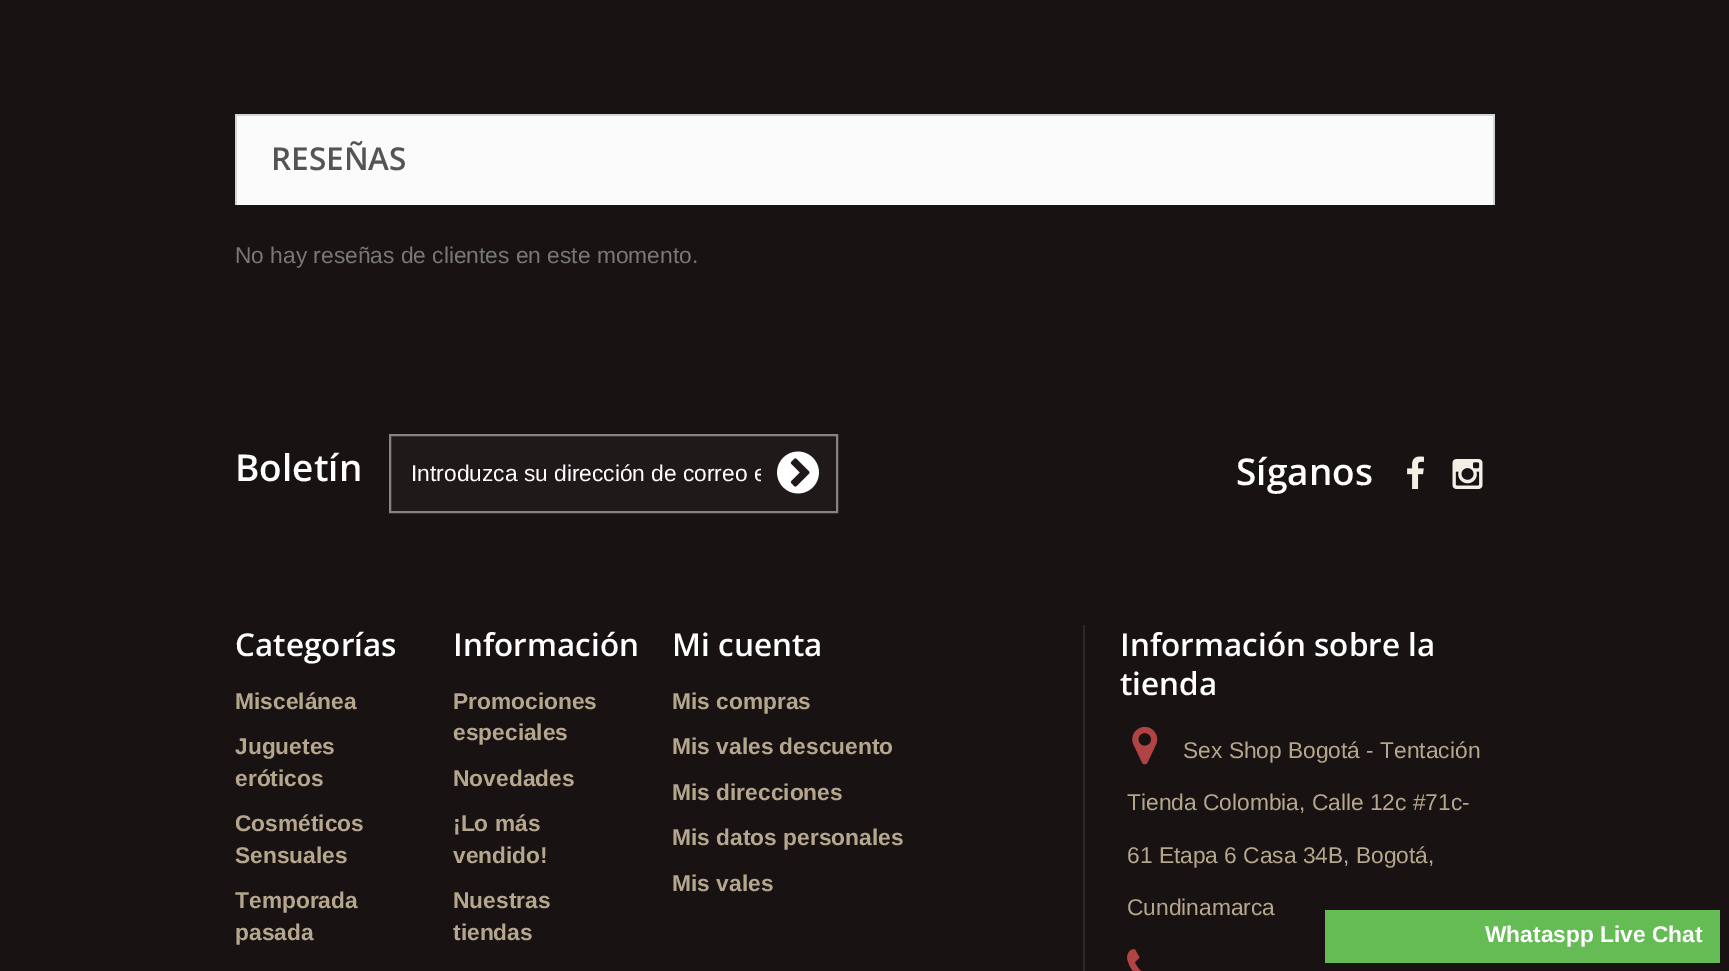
%!PS
<< /PageSize [1729 971] >> setpagedevice
/rgb { 3 { 255 div 3 1 roll } repeat setrgbcolor } def
/font { [ exch dup neg 0 0 3 -1 roll 0 0 ] selectfont } def
/picture { 5 dict begin { /h /w /y /x /name } { exch def } forall
  gsave x y translate w h scale
  w h 8 [w 0 0 h 0 0] name (r) file false 3 colorimage grestore end } def
0 971 translate 1 -1 scale
4 setmiterlimit
24 18 18 rgb
0 0 1729 971 rectfill
[
  [237 116 1256 89 251 251 251]
  [235 114 1260 2 214 212 212]
  [1493 114 2 91 214 212 212]
  [235 114 2 91 214 212 212]
] { aload pop rgb rectfill } forall
31 25 25 rgb
390 435 moveto 837 435 lineto 837 512 lineto 390 512 lineto closepath gsave fill grestore
137 131 127 rgb
2 setlinewidth
stroke
(img/1.rgb) 777 451 42 43 picture
(img/2.rgb) 1407 456 17 33 picture
(img/3.rgb) 1452 459 31 30 picture
46 40 40 rgb
1083 625 2 346 rectfill
(img/4.rgb) 1132 726 26 39 picture
(img/5.rgb) 1127 949 14 22 picture
101 188 84 rgb
1325 910 395 53 rectfill
/OpenSans-SemiBold 31.5 font
85 84 84 rgb
271 170 moveto (RESEÑAS) show
/LiberationSans-Regular 22.75 font
119 119 119 rgb
235 263 moveto (No hay reseñas de clientes en este momento.) show
/OpenSans-SemiBold 37 font
255 255 255 rgb
235 481 moveto (Boletín) show
gsave
411 460 350 27 rectclip
/LiberationSans-Regular 22.75 font
411 481 moveto (Introduzca su dirección de correo e) show
grestore
1236 485 moveto (Síganos) show
/OpenSans-SemiBold 31.5 font
235 656 moveto (Categorías) show
/LiberationSans-Bold 22.75 font
181 167 141 rgb
[
  [(Miscelánea) 235 709]
  [(Juguetes) 235 754]
  [(eróticos) 235 786]
  [(Cosméticos) 235 831]
  [(Sensuales) 235 863]
  [(Temporada) 235 908]
  [(pasada) 235 940]
] { aload pop moveto show } forall
/OpenSans-SemiBold 31.5 font
255 255 255 rgb
453 656 moveto (Información) show
/LiberationSans-Bold 22.75 font
181 167 141 rgb
[
  [(Promociones) 453 709]
  [(especiales) 453 740]
  [(Novedades) 453 786]
  [(¡Lo más) 453 831]
  [(vendido!) 453 863]
  [(Nuestras) 453 908]
  [(tiendas) 453 940]
] { aload pop moveto show } forall
/OpenSans-SemiBold 31.5 font
255 255 255 rgb
672 656 moveto (Mi cuenta) show
/LiberationSans-Bold 22.75 font
181 167 141 rgb
[
  [(Mis compras) 672 709]
  [(Mis vales descuento) 672 754]
  [(Mis direcciones) 672 800]
  [(Mis datos personales) 672 845]
  [(Mis vales) 672 891]
] { aload pop moveto show } forall
/OpenSans-SemiBold 31.5 font
255 255 255 rgb
1120 656 moveto (Información sobre la) show
1120 695 moveto (tienda) show
/LiberationSans-Regular 22.75 font
181 167 141 rgb
[
  [(Sex Shop Bogotá - Tentación) 1183 758]
  [(Tienda Colombia, Calle 12c #71c-) 1127 810]
  [(61 Etapa 6 Casa 34B, Bogotá,) 1127 863]
  [(Cundinamarca) 1127 915]
] { aload pop moveto show } forall
/LiberationSans-Bold 22.75 font
255 255 255 rgb
1485 942 moveto (Whataspp Live Chat) show
showpage
